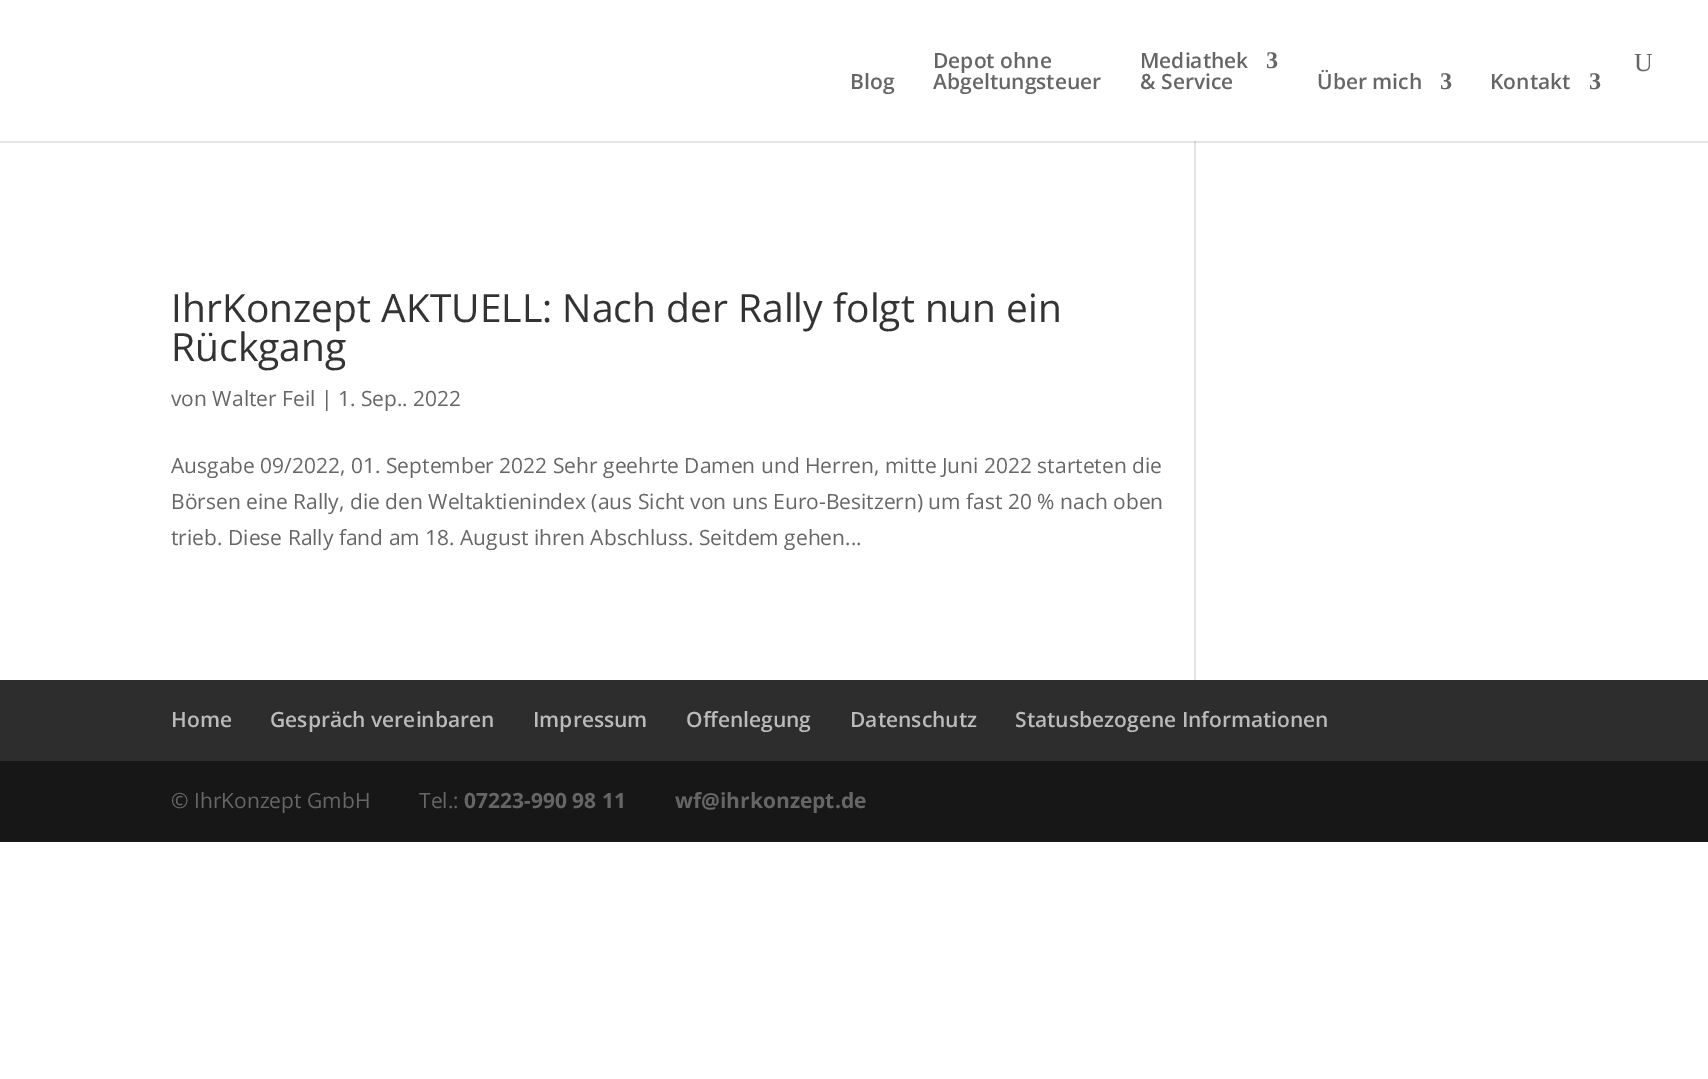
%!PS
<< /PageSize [1708 1079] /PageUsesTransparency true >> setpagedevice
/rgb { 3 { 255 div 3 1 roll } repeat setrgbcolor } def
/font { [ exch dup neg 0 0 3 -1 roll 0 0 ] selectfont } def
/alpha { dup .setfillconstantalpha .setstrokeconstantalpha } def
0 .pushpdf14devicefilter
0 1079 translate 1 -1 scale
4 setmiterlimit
255 255 255 rgb
0 0 1708 1079 rectfill
226 226 226 rgb
1194 141 2 539 rectfill
0.1 alpha
0 0 0 rgb
0 141 moveto 0 143 lineto 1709 143 lineto 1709 2 lineto 1708 2 lineto 1708 141 lineto closepath fill
1 alpha
45 45 45 rgb
0 680 1708 81 rectfill
23 23 23 rgb
0 761 1708 81 rectfill
/OpenSans-SemiBold 21 font
102 102 102 rgb
[
  [(Blog) 850 89]
  [(Depot ohne) 933 68]
  [(Abgeltungsteuer) 933 89]
  [(Mediathek) 1140 68]
] { aload pop moveto show } forall
/LiberationSerif-Bold 24 font
1266 68 moveto (3) show
/OpenSans-SemiBold 21 font
1140 89 moveto (& Service) show
1317 89 moveto (Über mich) show
/LiberationSerif-Bold 24 font
1440 89 moveto (3) show
/OpenSans-SemiBold 21 font
1490 89 moveto (Kontakt) show
/LiberationSerif-Bold 24 font
1589 89 moveto (3) show
/LiberationSerif-Regular 26 font
1634 71 moveto (U) show
/OpenSans-Regular 39 font
51 51 51 rgb
171 322 moveto (IhrKonzept AKTUELL: Nach der Rally folgt nun ein) show
171 361 moveto (Rückgang) show
/OpenSans-Regular 21 font
102 102 102 rgb
[
  [(von Walter Feil | 1. Sep.. 2022) 171 406]
  [(Ausgabe 09/2022, 01. September 2022 Sehr geehrte Damen und Herren, mitte Juni 2022 starteten die) 171 473]
  [(Börsen eine Rally, die den Weltaktienindex \(aus Sicht von uns Euro-Besitzern\) um fast 20 % nach oben) 171 509]
  [(trieb. Diese Rally fand am 18. August ihren Abschluss. Seitdem gehen...) 171 545]
] { aload pop moveto show } forall
/OpenSans-SemiBold 21 font
187 187 187 rgb
[
  [(Home) 171 727]
  [(Gespräch vereinbaren) 270 727]
  [(Impressum) 533 727]
  [(Offenlegung) 686 727]
  [(Datenschutz) 850 727]
  [(Statusbezogene Informationen) 1015 727]
] { aload pop moveto show } forall
/OpenSans-Regular 21 font
102 102 102 rgb
171 808 moveto (© IhrKonzept GmbH) show
419 808 moveto (Tel.:) show
/OpenSans-Bold 21 font
464 808 moveto (07223-990 98 11) show
675 808 moveto (wf@ihrkonzept.de) show
.poppdf14devicefilter showpage
